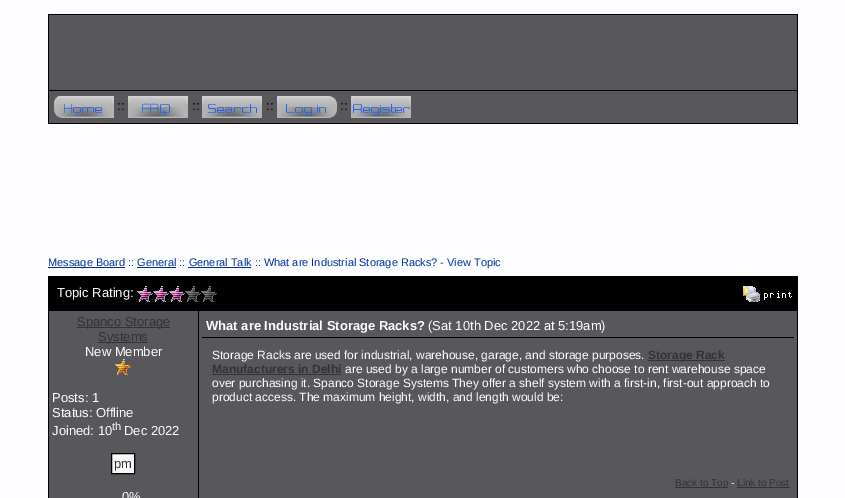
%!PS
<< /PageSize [845 498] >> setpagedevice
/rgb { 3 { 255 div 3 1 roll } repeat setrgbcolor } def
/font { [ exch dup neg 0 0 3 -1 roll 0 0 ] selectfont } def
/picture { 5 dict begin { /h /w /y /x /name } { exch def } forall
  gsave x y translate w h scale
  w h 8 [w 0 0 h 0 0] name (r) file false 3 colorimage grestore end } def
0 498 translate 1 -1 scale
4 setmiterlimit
253 252 255 rgb
0 0 845 498 rectfill
[
  [48 14 750 110 0 0 0]
  [49 15 748 75 88 87 92]
  [49 91 748 32 88 87 92]
] { aload pop rgb rectfill } forall
(img/1.rgb) 54 96 60 22 picture
(img/2.rgb) 128 96 60 22 picture
(img/3.rgb) 202 96 60 22 picture
(img/4.rgb) 277 96 60 22 picture
(img/5.rgb) 351 96 60 22 picture
[
  [48 267 77 1 0 51 153]
  [137 267 39 1 0 51 153]
  [188 267 63 1 0 51 153]
  [48 276 750 222 0 0 0]
] { aload pop rgb rectfill } forall
(img/6.rgb) 137 286 16 16 picture
(img/6.rgb) 153 286 16 16 picture
(img/6.rgb) 169 286 16 16 picture
(img/7.rgb) 185 286 16 16 picture
(img/7.rgb) 201 286 16 16 picture
(img/8.rgb) 743 286 49 16 picture
[
  [49 311 149 187 88 87 92]
  [77 327 93 1 51 51 51]
  [98 342 50 1 51 51 51]
] { aload pop rgb rectfill } forall
(img/9.rgb) 115 359 16 16 picture
248 248 248 rgb
111.5 453.5 moveto 134.5 453.5 lineto 134.5 473.5 lineto 111.5 473.5 lineto closepath gsave fill grestore
0 0 0 rgb
stroke
[
  [199 311 598 187 88 87 92]
  [202 337 592 1 0 0 0]
  [648 360 77 1 51 51 51]
  [212 374 129 1 51 51 51]
  [675 487 53 1 51 51 51]
  [737 487 53 1 51 51 51]
] { aload pop rgb rectfill } forall
/LiberationSans-Regular 13 font
0 0 0 rgb
[
  [(::) 117 110]
  [(::) 192 110]
  [(::) 266 110]
  [(::) 340 110]
] { aload pop moveto show } forall
/LiberationSans-Regular 11 font
0 51 153 rgb
48 266 moveto (Message Board :: General :: General Talk :: What are Industrial Storage Racks? - View Topic) show
/LiberationSans-Regular 13 font
253 253 254 rgb
57 297 moveto (Topic Rating:) show
51 51 51 rgb
77 326 moveto (Spanco Storage) show
98 341 moveto (Systems) show
253 253 254 rgb
[
  [(New Member) 85 356]
  [(Posts: 1) 52 402]
  [(Status: Offline) 52 417]
  [(Joined: 10) 52 435]
] { aload pop moveto show } forall
/LiberationSans-Regular 11 font
112 430 moveto (th) show
/LiberationSans-Regular 13 font
124 435 moveto (Dec 2022) show
51 51 51 rgb
114 468 moveto (pm) show
253 253 254 rgb
122 501 moveto (0%) show
/LiberationSans-Bold 13 font
206 330 moveto (What are Industrial Storage Racks?) show
/LiberationSans-Regular 13 font
428 330 moveto (\(Sat 10th Dec 2022 at 5:19am\)) show
/LiberationSans-Regular 12 font
212 359 moveto (Storage Racks are used for industrial, warehouse, garage, and storage purposes.) show
/LiberationSans-Bold 12 font
51 51 51 rgb
648 359 moveto (Storage Rack) show
212 373 moveto (Manufacturers in Delhi) show
/LiberationSans-Regular 12 font
253 253 254 rgb
[
  [(are used by a large number of customers who choose to rent warehouse space) 345 373]
  [(over purchasing it. Spanco Storage Systems They offer a shelf system with a first-in, first-out approach to) 212 387]
  [(product access. The maximum height, width, and length would be:) 212 401]
] { aload pop moveto show } forall
/LiberationSans-Regular 10 font
51 51 51 rgb
675 486 moveto (Back to Top) show
253 253 254 rgb
731 486 moveto (-) show
51 51 51 rgb
737 486 moveto (Link to Post) show
showpage
